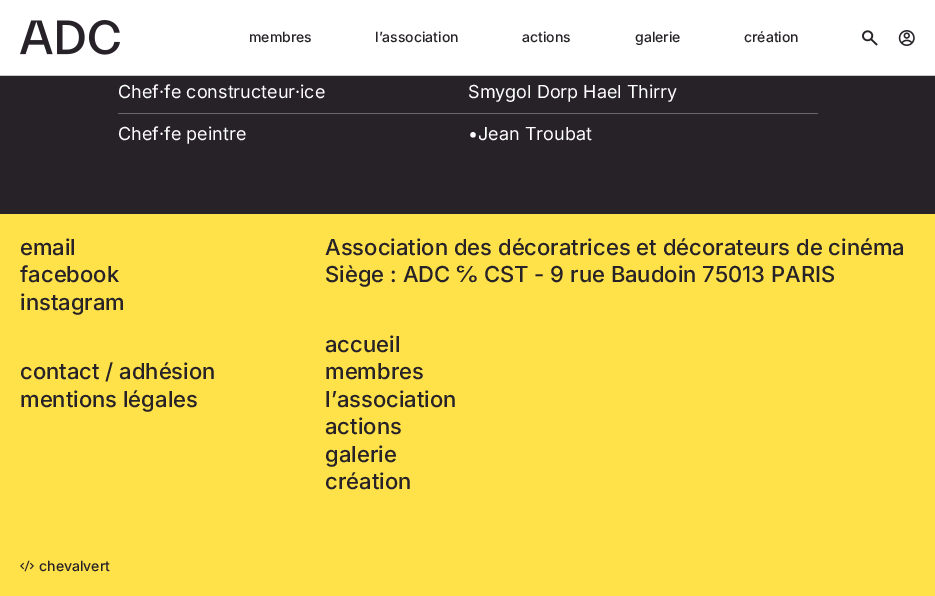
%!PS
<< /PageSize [935 596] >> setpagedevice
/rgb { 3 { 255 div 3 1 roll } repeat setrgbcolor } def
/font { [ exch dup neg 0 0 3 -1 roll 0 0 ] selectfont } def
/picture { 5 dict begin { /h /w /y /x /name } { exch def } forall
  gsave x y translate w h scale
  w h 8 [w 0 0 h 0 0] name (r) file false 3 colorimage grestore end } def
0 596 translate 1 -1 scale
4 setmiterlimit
38 34 40 rgb
0 0 935 596 rectfill
255 255 255 rgb
0 0 935 75 rectfill
202 202 202 rgb
0 75 935 1 rectfill
(img/1.rgb) 20 20 100 35 picture
(img/2.rgb) 862 30 16 16 picture
(img/3.rgb) 898 30 17 16 picture
104 104 104 rgb
118 113 700 1 rectfill
255 226 73 rgb
0 214 935 382 rectfill
(img/4.rgb) 20 560 14 12 picture
/Inter-Medium 14 font
38 34 40 rgb
[
  [(membres) 249 42]
  [(l’association) 375 42]
  [(actions) 522 42]
  [(galerie) 635 42]
  [(création) 744 42]
] { aload pop moveto show } forall
/Inter-Regular 18 font
255 255 255 rgb
[
  [(Chef·fe constructeur·ice) 118 98]
  [(Smygol Dorp Hael Thirry) 468 98]
  [(Chef·fe peintre) 118 140]
  [(•Jean Troubat) 468 140]
] { aload pop moveto show } forall
/Inter-Medium 22 font
38 34 40 rgb
[
  [(email) 20 255]
  [(facebook) 20 282]
  [(instagram) 20 310]
  [(contact / adhésion) 20 379]
  [(mentions légales) 20 407]
  [(Association des décoratrices et décorateurs de cinéma) 325 255]
  [(Siège : ADC ℅ CST - 9 rue Baudoin 75013 PARIS) 325 282]
  [(accueil) 325 352]
  [(membres) 325 379]
  [(l’association) 325 407]
  [(actions) 325 434]
  [(galerie) 325 462]
  [(création) 325 489]
] { aload pop moveto show } forall
/Inter-Medium 14 font
39 571 moveto (chevalvert) show
showpage
